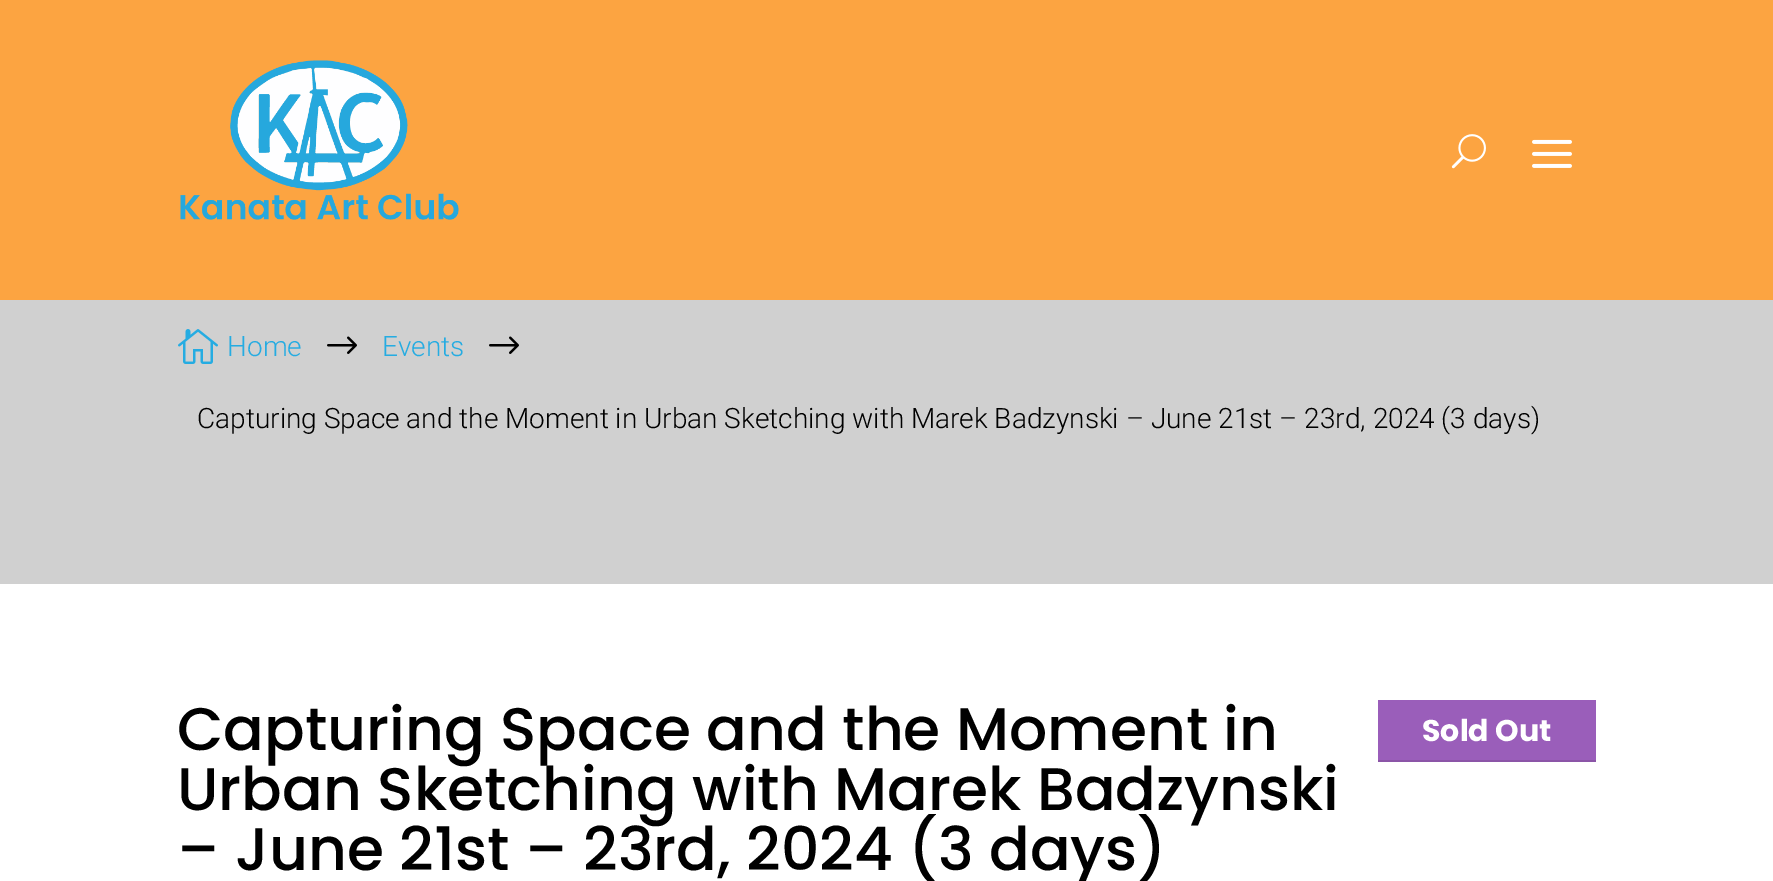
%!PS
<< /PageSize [1773 881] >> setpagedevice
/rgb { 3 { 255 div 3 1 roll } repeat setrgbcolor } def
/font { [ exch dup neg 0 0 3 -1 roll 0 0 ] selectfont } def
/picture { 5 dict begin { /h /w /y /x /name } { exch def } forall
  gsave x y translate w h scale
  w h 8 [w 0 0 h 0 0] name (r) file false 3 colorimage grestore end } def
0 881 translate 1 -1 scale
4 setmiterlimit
255 255 255 rgb
0 0 1773 881 rectfill
252 164 65 rgb
0 0 1773 300 rectfill
(img/1.rgb) 180 60 279 160 picture
(img/2.rgb) 1451 134 35 35 picture
(img/3.rgb) 1532 139 40 29 picture
208 208 208 rgb
0 300 1773 284 rectfill
(img/4.rgb) 178 329 40 35 picture
(img/5.rgb) 327 336 30 18 picture
(img/5.rgb) 489 336 30 18 picture
154 94 186 rgb
1378 700 218 60 rectfill
139 85 167 rgb
1378 760 218 2 rectfill
/Roboto-Light 28 font
37 172 226 rgb
227 356 moveto (Home) show
382 356 moveto (Events) show
0 0 0 rgb
197 428 moveto (Capturing Space and the Moment in Urban Sketching with Marek Badzynski – June 21st – 23rd, 2024 \(3 days\)) show
/Poppins-Medium 60 font
177 750 moveto (Capturing Space and the Moment in) show
/Poppins-Bold 30 font
255 255 255 rgb
1422 741 moveto (Sold Out) show
/Poppins-Medium 60 font
0 0 0 rgb
177 810 moveto (Urban Sketching with Marek Badzynski) show
177 870 moveto (– June 21st – 23rd, 2024 \(3 days\)) show
showpage
